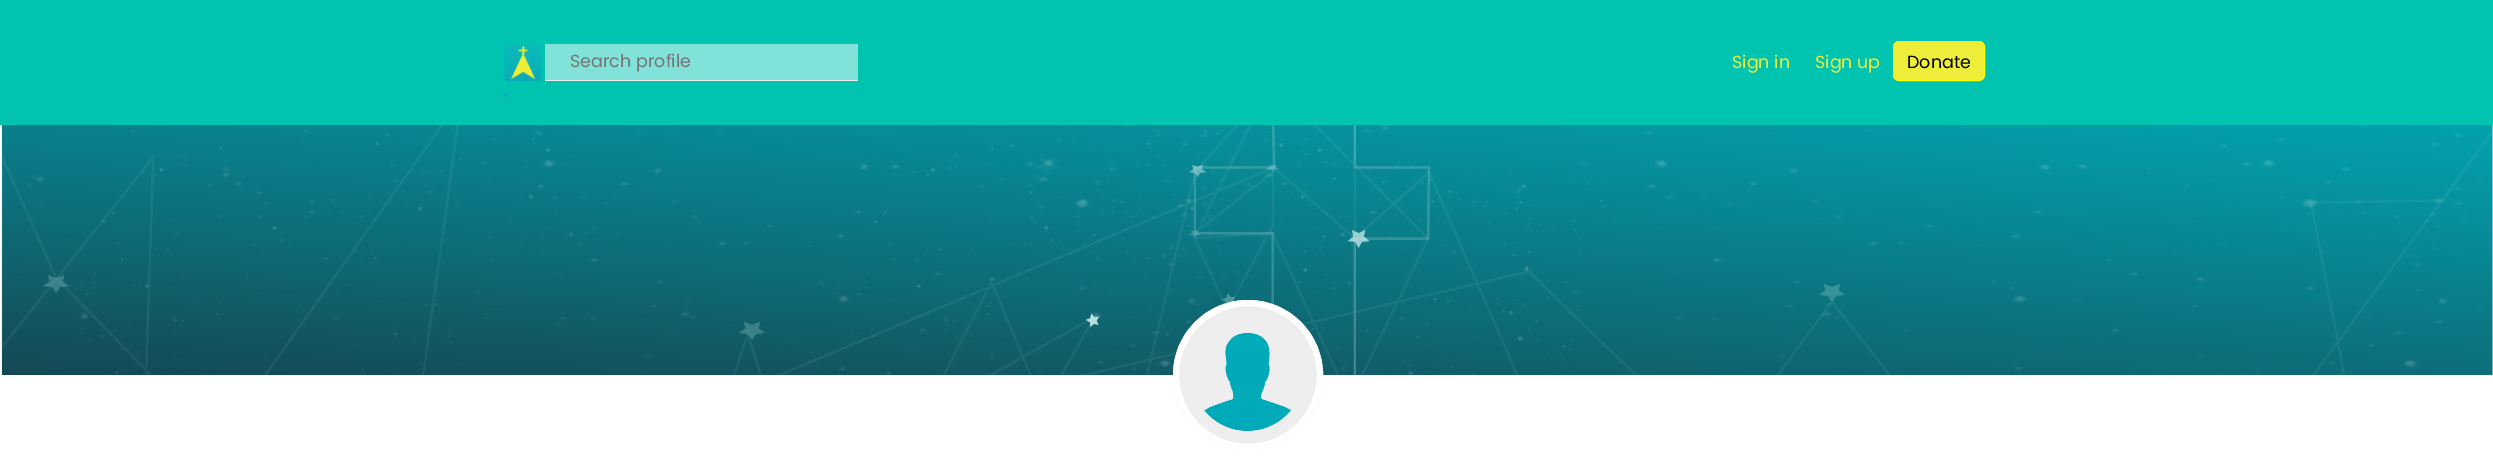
%!PS
<< /PageSize [2493 461] >> setpagedevice
/rgb { 3 { 255 div 3 1 roll } repeat setrgbcolor } def
/font { [ exch dup neg 0 0 3 -1 roll 0 0 ] selectfont } def
/circle { newpath 0 360 arc closepath } def
/roundrect { 5 dict begin { /r /h /w /y /x } { exch def } forall
  x r add y moveto x w add y 2 copy h add r arct x w add y h add x 1 index r arct
  x y h add x y r arct x y 2 copy exch w add exch r arct closepath end } def
/picture { 5 dict begin { /h /w /y /x /name } { exch def } forall
  gsave x y translate w h scale
  w h 8 [w 0 0 h 0 0] name (r) file false 3 colorimage grestore end } def
0 461 translate 1 -1 scale
4 setmiterlimit
255 255 255 rgb
0 0 2493 461 rectfill
0 196 176 rgb
0 0 2493 125 rectfill
(img/1.rgb) 504 44 38 38 picture
[
  [545 44 313 36 128 226 216]
  [545 80 313 1 238 238 238]
  [504 94 3 3 11 170 184]
] { aload pop rgb rectfill } forall
237 237 58 rgb
1893.5 41.5 91 39 5.5 roundrect gsave fill grestore
255 255 0 rgb
stroke
(img/2.rgb) 1 125 2492 250 picture
238 238 238 rgb
1248 375 75 circle fill
(img/3.rgb) 1204 333 88 98 picture
255 255 255 rgb
6 setlinewidth
1248 375 72 circle stroke
/Poppins-Regular 17.5 font
117 117 117 rgb
570 67 moveto (Search profile) show
237 237 58 rgb
1732 68 moveto (Sign in) show
1815 68 moveto (Sign up) show
0 0 0 rgb
1907 68 moveto (Donate) show
showpage
